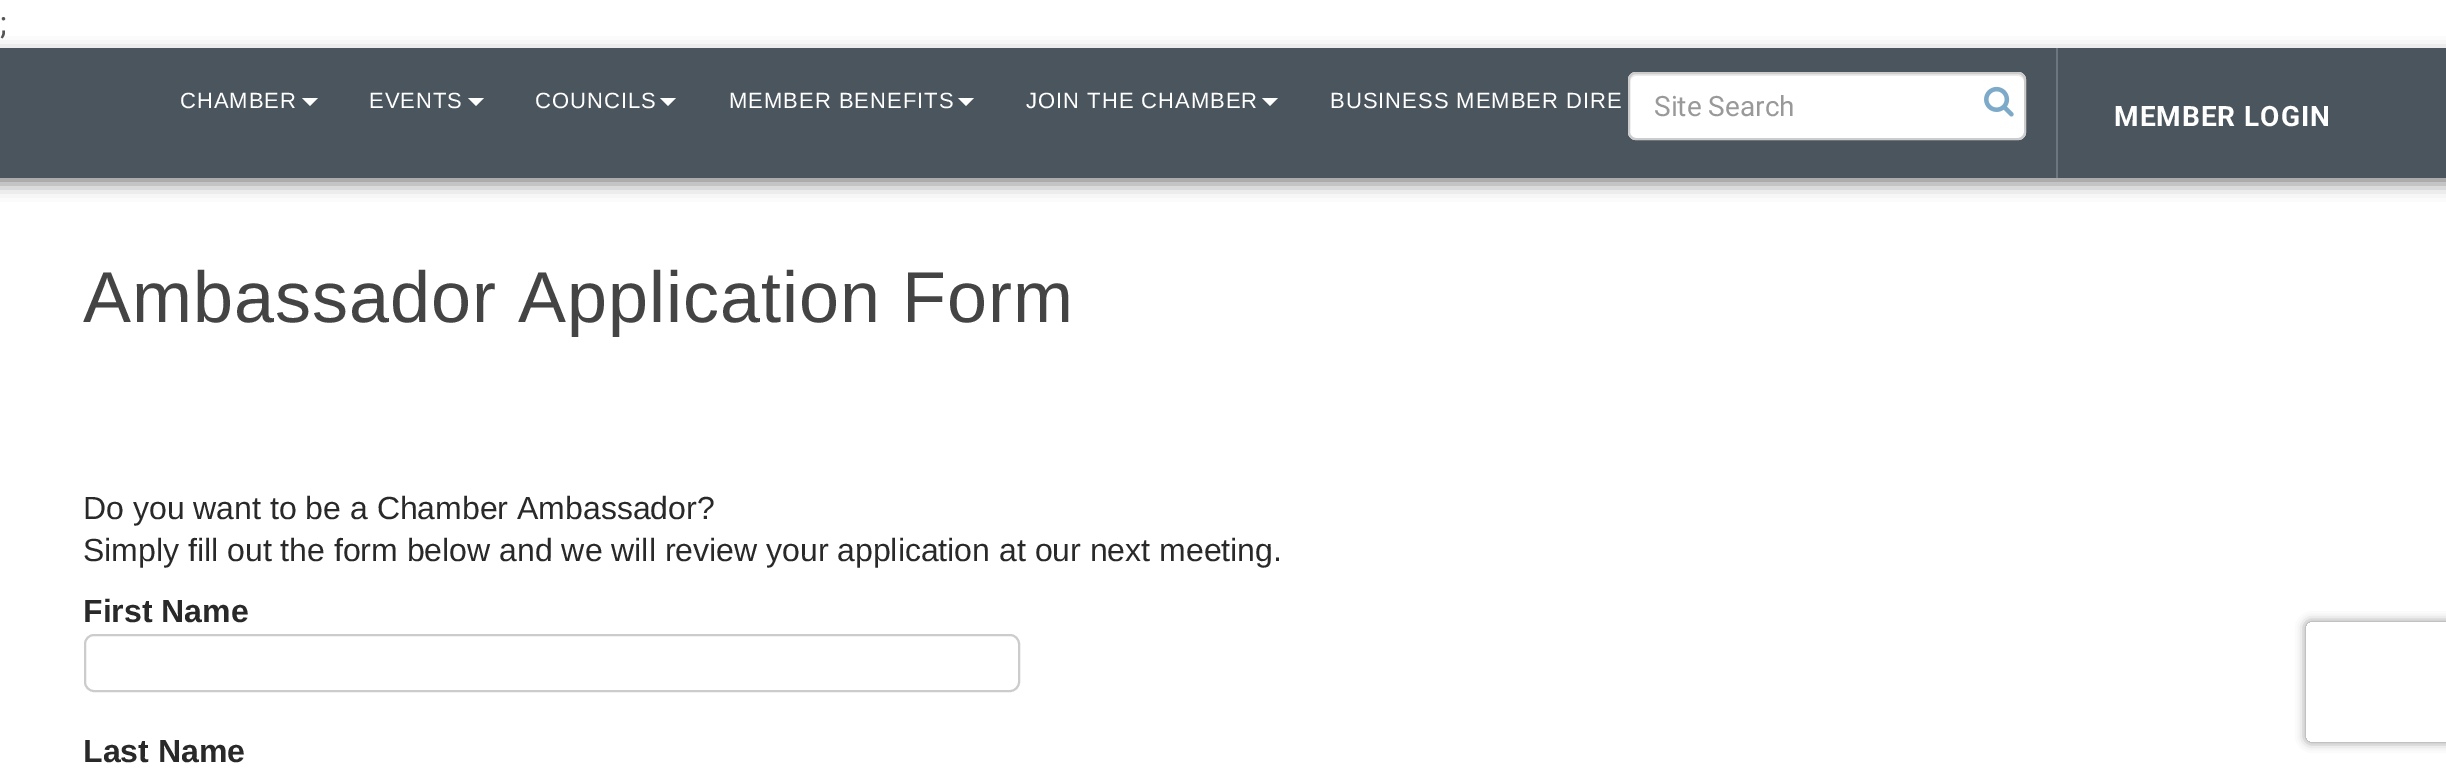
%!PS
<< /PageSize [2446 770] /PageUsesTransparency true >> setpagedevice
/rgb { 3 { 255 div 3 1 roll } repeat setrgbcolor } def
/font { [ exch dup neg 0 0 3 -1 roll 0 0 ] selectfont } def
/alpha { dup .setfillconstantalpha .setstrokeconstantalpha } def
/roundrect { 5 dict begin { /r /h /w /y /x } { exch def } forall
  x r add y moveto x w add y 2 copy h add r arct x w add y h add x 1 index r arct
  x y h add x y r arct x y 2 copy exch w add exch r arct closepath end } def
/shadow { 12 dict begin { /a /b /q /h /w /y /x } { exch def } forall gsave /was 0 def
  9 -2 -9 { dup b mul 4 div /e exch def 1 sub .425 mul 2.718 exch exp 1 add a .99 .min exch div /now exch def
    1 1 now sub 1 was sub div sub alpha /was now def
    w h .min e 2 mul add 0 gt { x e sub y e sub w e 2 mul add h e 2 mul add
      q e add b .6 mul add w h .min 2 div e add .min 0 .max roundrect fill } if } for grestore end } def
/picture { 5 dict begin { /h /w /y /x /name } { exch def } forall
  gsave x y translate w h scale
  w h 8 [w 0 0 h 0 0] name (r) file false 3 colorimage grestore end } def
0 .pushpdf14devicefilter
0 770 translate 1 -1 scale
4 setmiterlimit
255 255 255 rgb
0 0 2446 770 rectfill
0 0 0 rgb
-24 54 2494 130 0 8 0.46 shadow
75 85 94 rgb
0 48 2446 130 rectfill
255 255 255 rgb
302 98 moveto 318 98 lineto 310 106 lineto closepath fill
468 98 moveto 484 98 lineto 476 106 lineto closepath fill
660 98 moveto 676 98 lineto 668 106 lineto closepath fill
958 98 moveto 974 98 lineto 966 106 lineto closepath fill
1262 98 moveto 1278 98 lineto 1270 106 lineto closepath fill
1628 72 398 68 8 roundrect fill
236 236 236 rgb
1636 76 moveto 2018 76 lineto 2021 76 2024 79 2024 82 curveto 2024 78 2023 74 2018 74 curveto 1636 74 lineto 1631 74 1630 78 1630 82 curveto 1630 79 1633 76 1636 76 curveto closepath fill
204 204 204 rgb
2 setlinewidth
1629 73 396 66 7 roundrect stroke
(img/1.rgb) 1984 86 30 31 picture
109 117 125 rgb
2056 48 2 130 rectfill
204 204 204 rgb
85 635 934 56 9 roundrect stroke
gsave
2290 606 moveto 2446 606 lineto 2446 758 lineto 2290 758 lineto closepath 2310 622 moveto 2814 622 lineto 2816 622 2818 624 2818 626 curveto 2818 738 lineto 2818 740 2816 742 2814 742 curveto 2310 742 lineto 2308 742 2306 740 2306 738 curveto 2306 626 lineto 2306 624 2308 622 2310 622 curveto closepath eoclip newpath
128 128 128 rgb
2306 622 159 120 4 5 1 shadow
grestore
/Roboto-Regular 32 font
85 85 85 rgb
0 34 moveto 1 0 (;) ashow
/Arimo-Regular 22 font
255 255 255 rgb
180 108 moveto 1 0 (CHAMBER) ashow
369 108 moveto 1 0 (EVENTS) ashow
535 108 moveto 1 0 (COUNCILS) ashow
729 108 moveto 1 0 (MEMBER BENEFITS) ashow
1026 108 moveto 1 0 (JOIN THE CHAMBER) ashow
1330 108 moveto 1 0 (BUSINESS MEMBER DIRE) ashow
/Roboto-Regular 28 font
153 153 153 rgb
1654 116 moveto (Site Search) show
/Roboto-Bold 28 font
255 255 255 rgb
2114 126 moveto 1 0 (MEMBER LOGIN) ashow
/Arimo-Regular 72 font
68 68 68 rgb
83 322 moveto 1 0 (Ambassador Application Form) ashow
/LiberationSans-Regular 32 font
41 41 41 rgb
83 519 moveto (Do you want to be a Chamber Ambassador?) show
83 561 moveto (Simply fill out the form below and we will review your application at our next meeting.) show
/LiberationSans-Bold 32 font
83 622 moveto (First Name) show
83 762 moveto (Last Name) show
.poppdf14devicefilter showpage
